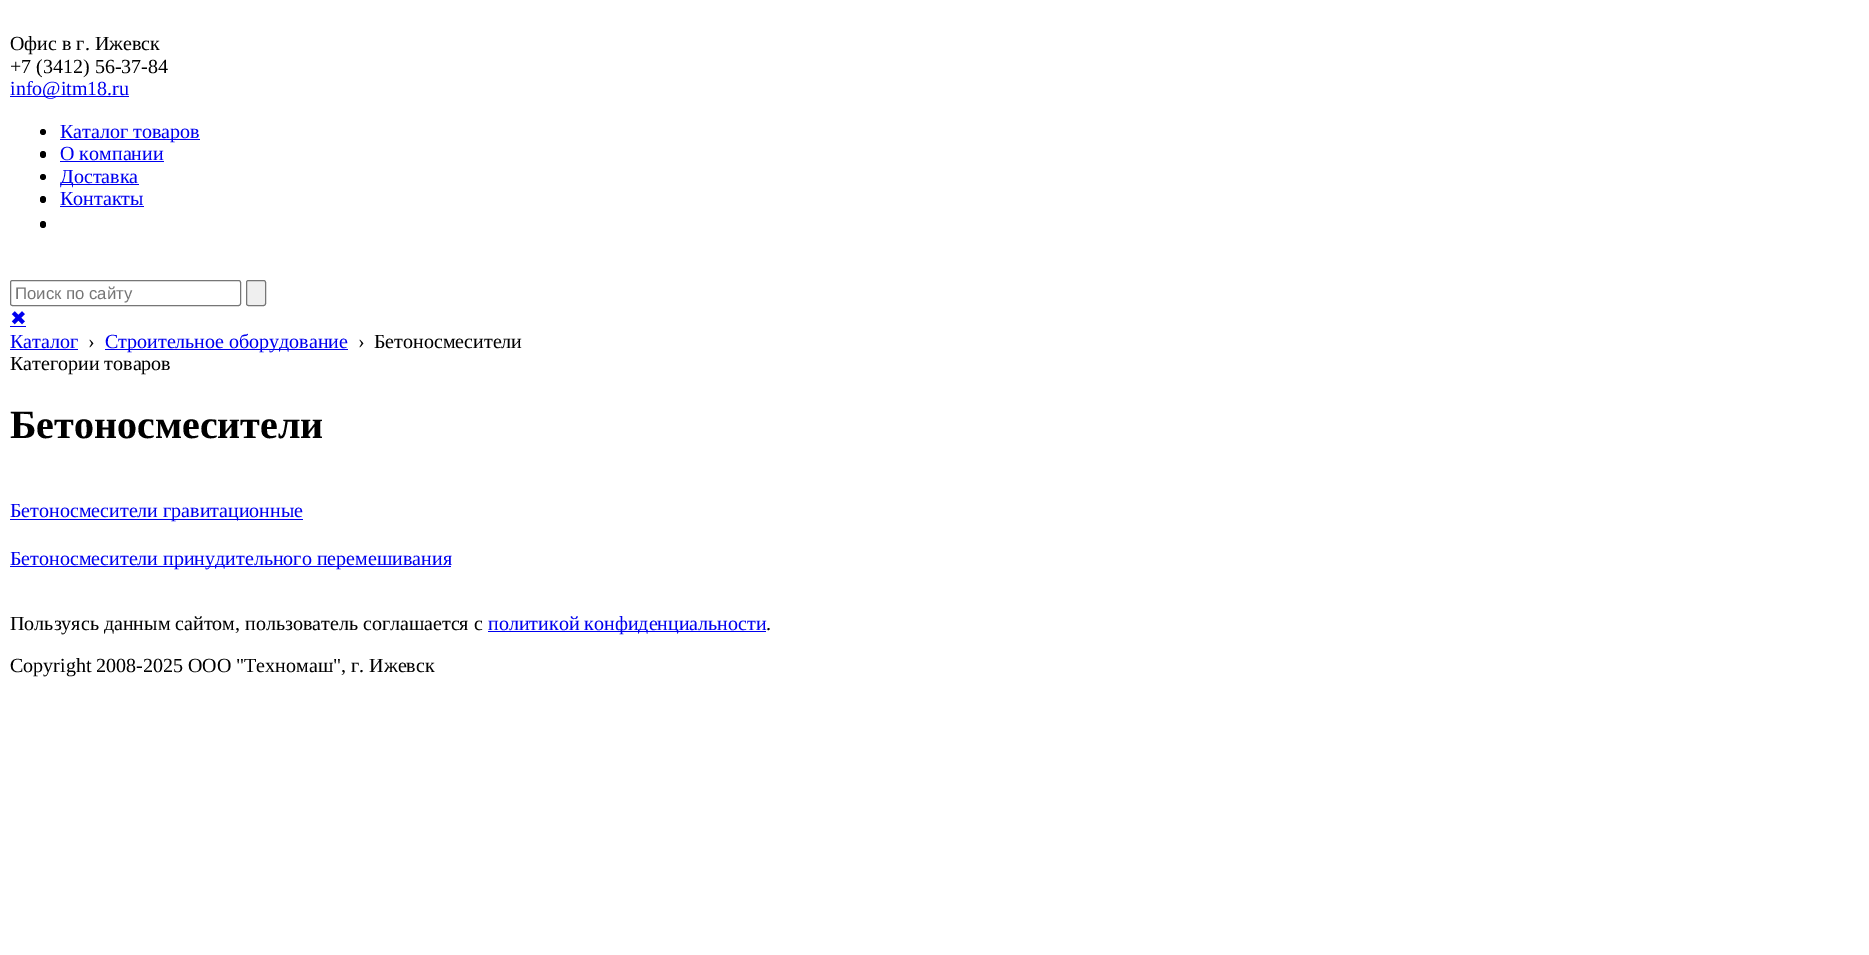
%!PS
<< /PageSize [1869 955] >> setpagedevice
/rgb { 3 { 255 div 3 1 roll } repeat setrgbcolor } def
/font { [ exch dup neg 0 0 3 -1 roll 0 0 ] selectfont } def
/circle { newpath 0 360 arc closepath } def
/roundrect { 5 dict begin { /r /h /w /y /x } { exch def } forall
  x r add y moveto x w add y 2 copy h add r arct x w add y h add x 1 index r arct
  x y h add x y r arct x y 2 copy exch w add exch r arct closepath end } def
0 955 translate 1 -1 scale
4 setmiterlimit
255 255 255 rgb
0 0 1869 955 rectfill
0 0 238 rgb
10 96 119 1 rectfill
0 0 0 rgb
43 132 3 circle fill
0 0 238 rgb
60 139 140 1 rectfill
0 0 0 rgb
40 151 6 7 3 roundrect fill
0 0 238 rgb
60 161 104 1 rectfill
0 0 0 rgb
43 177 3 circle fill
0 0 238 rgb
60 184 79 1 rectfill
0 0 0 rgb
40 196 6 7 3 roundrect fill
0 0 238 rgb
60 206 84 1 rectfill
0 0 0 rgb
40 221 6 7 3 roundrect fill
118 118 118 rgb
10.5 280.5 230 25 2 roundrect stroke
239 239 239 rgb
246.5 280.5 19 25 2 roundrect gsave fill grestore
118 118 118 rgb
stroke
[
  [10 326 16 1 0 0 238]
  [10 349 68 1 0 0 238]
  [105 349 243 1 0 0 238]
  [10 519 293 1 0 0 238]
  [10 566 441 1 0 0 238]
  [488 631 278 1 0 0 238]
] { aload pop rgb rectfill } forall
/LiberationSerif-Regular 20 font
0 0 0 rgb
10 50 moveto (Офис в г. Ижевск) show
10 73 moveto (+7 \(3412\) 56-37-84) show
0 0 238 rgb
[
  [(info@itm18.ru) 10 95]
  [(Каталог товаров) 60 138]
  [(О компании) 60 160]
  [(Доставка) 60 183]
  [(Контакты) 60 205]
] { aload pop moveto show } forall
/LiberationSans-Regular 16.75 font
117 117 117 rgb
15 299 moveto (Поиск по сайту) show
/DejaVuSans-Regular 20 font
0 0 238 rgb
10 325 moveto (✖) show
/LiberationSerif-Regular 20 font
10 348 moveto (Каталог) show
0 0 0 rgb
88 348 moveto (›) show
0 0 238 rgb
105 348 moveto (Строительное оборудование) show
0 0 0 rgb
[
  [(›) 358 348]
  [(Бетоносмесители) 374 348]
  [(Категории товаров) 10 370]
] { aload pop moveto show } forall
/LiberationSerif-Bold 40 font
10 438 moveto (Бетоносмесители) show
/LiberationSerif-Regular 20 font
0 0 238 rgb
10 517 moveto (Бетоносмесители гравитационные) show
10 565 moveto (Бетоносмесители принудительного перемешивания) show
0 0 0 rgb
10 630 moveto (Пользуясь данным сайтом, пользователь соглашается с) show
0 0 238 rgb
488 630 moveto (политикой конфиденциальности) show
0 0 0 rgb
766 630 moveto (.) show
10 672 moveto (Copyright 2008-2025 ООО "Техномаш", г. Ижевск) show
showpage
